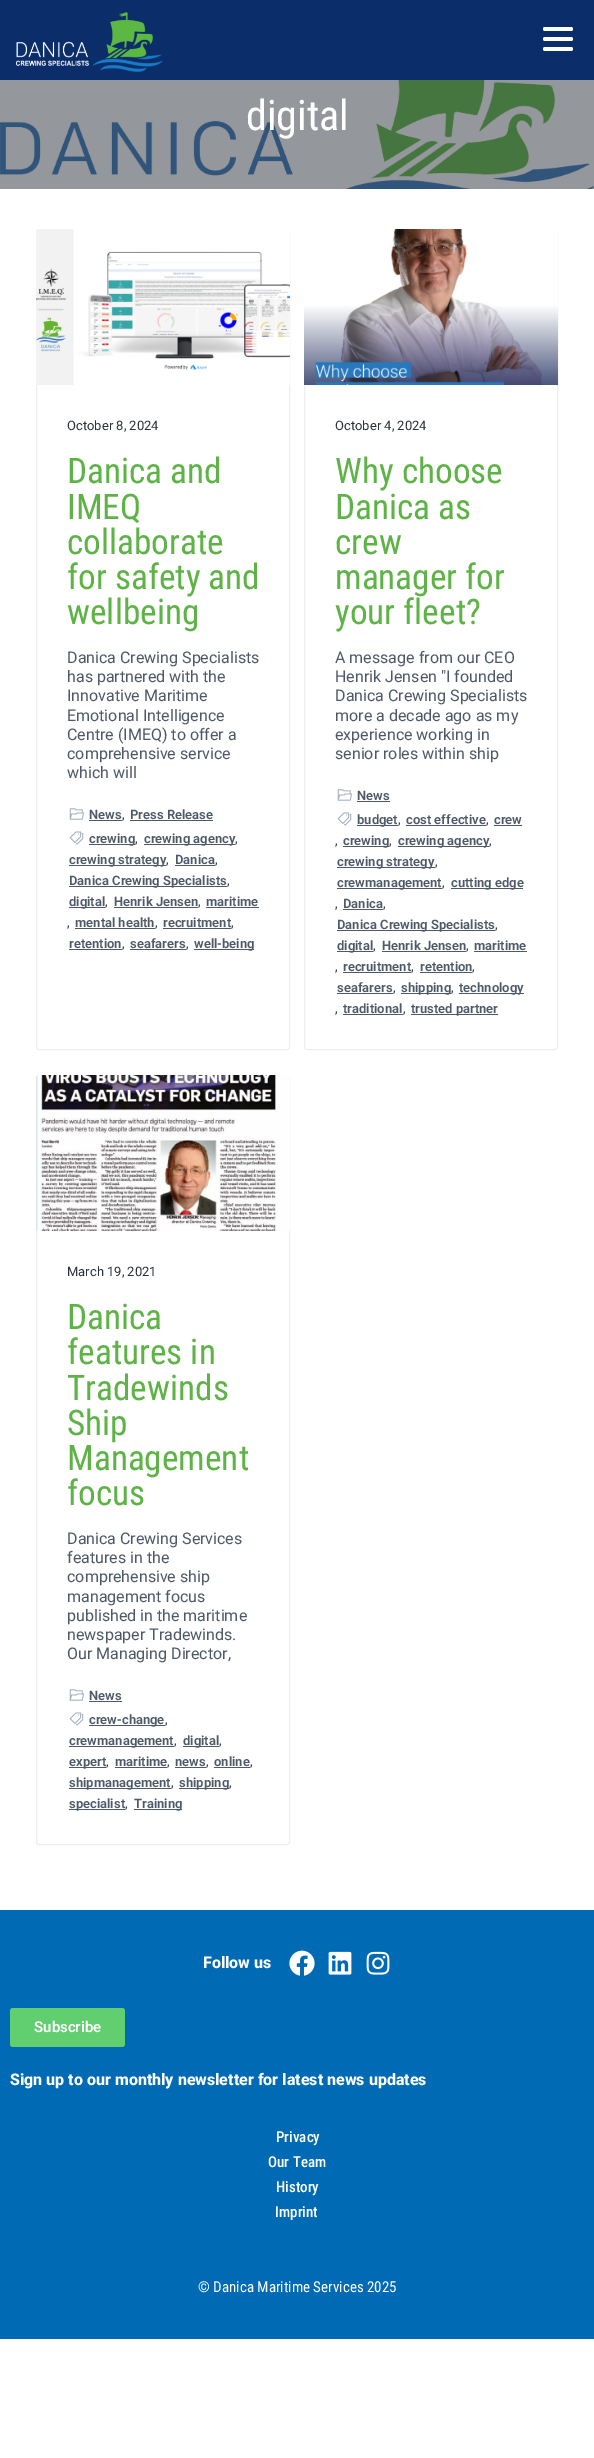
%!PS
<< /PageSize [594 2458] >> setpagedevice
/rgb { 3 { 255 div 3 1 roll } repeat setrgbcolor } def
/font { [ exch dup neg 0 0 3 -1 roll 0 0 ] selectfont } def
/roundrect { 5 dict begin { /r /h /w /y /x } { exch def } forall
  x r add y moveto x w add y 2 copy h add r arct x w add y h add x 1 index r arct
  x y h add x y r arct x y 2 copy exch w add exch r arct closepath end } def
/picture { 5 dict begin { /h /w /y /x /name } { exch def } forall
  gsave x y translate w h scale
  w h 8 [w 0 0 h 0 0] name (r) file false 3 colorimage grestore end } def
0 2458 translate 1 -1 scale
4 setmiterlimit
255 255 255 rgb
0 0 594 2458 rectfill
11 46 107 rgb
0 0 594 80 rectfill
(img/1.rgb) 16 12 147 60 picture
255 255 255 rgb
543 27 30 4 2 roundrect fill
543 37 30 4 2 roundrect fill
543 47 30 4 2 roundrect fill
(img/2.rgb) 0 80 594 109 picture
236 238 241 rgb
36.5 229.5 253 820 2.5 roundrect stroke
(img/3.rgb) 36 229 254 156 picture
(img/4.rgb) 69 808 16 12 picture
77 89 104 rgb
89 820 33 1 rectfill
130 820 83 1 rectfill
(img/5.rgb) 69 831 15 14 picture
[
  [89 844 46 1 77 89 104]
  [144 844 91 1 77 89 104]
  [69 865 97 1 77 89 104]
  [175 865 40 1 77 89 104]
  [69 886 158 1 77 89 104]
  [69 907 36 1 77 89 104]
  [114 907 84 1 77 89 104]
  [206 907 53 1 77 89 104]
  [75 928 80 1 77 89 104]
  [163 928 68 1 77 89 104]
  [69 949 53 1 77 89 104]
  [130 949 56 1 77 89 104]
  [194 949 60 1 77 89 104]
] { aload pop rgb rectfill } forall
236 238 241 rgb
304.5 229.5 253 820 2.5 roundrect stroke
(img/6.rgb) 304 229 254 156 picture
(img/4.rgb) 337 789 16 12 picture
77 89 104 rgb
357 801 33 1 rectfill
(img/5.rgb) 337 812 15 14 picture
[
  [357 825 41 1 77 89 104]
  [406 825 80 1 77 89 104]
  [494 825 28 1 77 89 104]
  [343 846 46 1 77 89 104]
  [398 846 91 1 77 89 104]
  [337 867 98 1 77 89 104]
  [337 888 105 1 77 89 104]
  [451 888 72 1 77 89 104]
  [343 909 40 1 77 89 104]
  [337 930 158 1 77 89 104]
  [337 951 36 1 77 89 104]
  [382 951 84 1 77 89 104]
  [474 951 53 1 77 89 104]
  [343 972 68 1 77 89 104]
  [420 972 52 1 77 89 104]
  [337 993 56 1 77 89 104]
  [401 993 50 1 77 89 104]
  [459 993 65 1 77 89 104]
  [343 1014 60 1 77 89 104]
  [411 1014 87 1 77 89 104]
] { aload pop rgb rectfill } forall
236 238 241 rgb
36.5 1075.5 253 769 2.5 roundrect stroke
(img/7.rgb) 36 1075 254 156 picture
(img/4.rgb) 69 1689 16 12 picture
77 89 104 rgb
89 1701 33 1 rectfill
(img/5.rgb) 69 1712 15 14 picture
[
  [89 1725 76 1 77 89 104]
  [69 1746 105 1 77 89 104]
  [183 1746 36 1 77 89 104]
  [69 1767 37 1 77 89 104]
  [115 1767 52 1 77 89 104]
  [175 1767 31 1 77 89 104]
  [214 1767 36 1 77 89 104]
  [69 1788 102 1 77 89 104]
  [179 1788 50 1 77 89 104]
  [69 1809 56 1 77 89 104]
  [134 1809 48 1 77 89 104]
  [0 1910 594 429 0 106 181]
] { aload pop rgb rectfill } forall
(img/8.rgb) 289 1950 26 26 picture
(img/9.rgb) 328 1951 24 24 picture
(img/10.rgb) 366 1951 24 24 picture
97 206 112 rgb
10 2008 115 39 3 roundrect fill
/RobotoCondensed-Regular 42 font
255 255 255 rgb
246 130 moveto (digital) show
/Roboto-Regular 13 font
42 49 57 rgb
67 430 moveto (October 8, 2024) show
/RobotoCondensed-Regular 35.25 font
94 179 70 rgb
[
  [(Danica and) 67 483]
  [(IMEQ) 67 519]
  [(collaborate) 67 554]
  [(for safety and) 67 589]
  [(wellbeing) 67 624]
] { aload pop moveto show } forall
/Roboto-Regular 16 font
77 89 104 rgb
[
  [(Danica Crewing Specialists) 67 663]
  [(has partnered with the) 67 682]
  [(Innovative Maritime) 67 701]
  [(Emotional Intelligence) 67 721]
  [(Centre \(IMEQ\) to offer a) 67 740]
  [(comprehensive service) 67 759]
  [(which will) 67 778]
] { aload pop moveto show } forall
/Roboto-SemiBold 13 font
89 819 moveto (News) show
/Roboto-Regular 13 font
42 49 57 rgb
122 819 moveto (,) show
/Roboto-SemiBold 13 font
77 89 104 rgb
130 819 moveto (Press Release) show
89 843 moveto (crewing) show
/Roboto-Regular 13 font
42 49 57 rgb
135 843 moveto (,) show
/Roboto-SemiBold 13 font
77 89 104 rgb
144 843 moveto (crewing agency) show
/Roboto-Regular 13 font
42 49 57 rgb
235 843 moveto (,) show
/Roboto-SemiBold 13 font
77 89 104 rgb
69 864 moveto (crewing strategy) show
/Roboto-Regular 13 font
42 49 57 rgb
166 864 moveto (,) show
/Roboto-SemiBold 13 font
77 89 104 rgb
175 864 moveto (Danica) show
/Roboto-Regular 13 font
42 49 57 rgb
215 864 moveto (,) show
/Roboto-SemiBold 13 font
77 89 104 rgb
69 885 moveto (Danica Crewing Specialists) show
/Roboto-Regular 13 font
42 49 57 rgb
227 885 moveto (,) show
/Roboto-SemiBold 13 font
77 89 104 rgb
69 906 moveto (digital) show
/Roboto-Regular 13 font
42 49 57 rgb
105 906 moveto (,) show
/Roboto-SemiBold 13 font
77 89 104 rgb
114 906 moveto (Henrik Jensen) show
/Roboto-Regular 13 font
42 49 57 rgb
198 906 moveto (,) show
/Roboto-SemiBold 13 font
77 89 104 rgb
206 906 moveto (maritime) show
/Roboto-Regular 13 font
42 49 57 rgb
67 927 moveto (,) show
/Roboto-SemiBold 13 font
77 89 104 rgb
75 927 moveto (mental health) show
/Roboto-Regular 13 font
42 49 57 rgb
155 927 moveto (,) show
/Roboto-SemiBold 13 font
77 89 104 rgb
163 927 moveto (recruitment) show
/Roboto-Regular 13 font
42 49 57 rgb
231 927 moveto (,) show
/Roboto-SemiBold 13 font
77 89 104 rgb
69 948 moveto (retention) show
/Roboto-Regular 13 font
42 49 57 rgb
122 948 moveto (,) show
/Roboto-SemiBold 13 font
77 89 104 rgb
130 948 moveto (seafarers) show
/Roboto-Regular 13 font
42 49 57 rgb
186 948 moveto (,) show
/Roboto-SemiBold 13 font
77 89 104 rgb
194 948 moveto (well-being) show
/Roboto-Regular 13 font
42 49 57 rgb
335 430 moveto (October 4, 2024) show
/RobotoCondensed-Regular 35.25 font
94 179 70 rgb
[
  [(Why choose) 335 483]
  [(Danica as) 335 519]
  [(crew) 335 554]
  [(manager for) 335 589]
  [(your fleet?) 335 624]
] { aload pop moveto show } forall
/Roboto-Regular 16 font
77 89 104 rgb
[
  [(A message from our CEO) 335 663]
  [(Henrik Jensen "I founded) 335 682]
  [(Danica Crewing Specialists) 335 701]
  [(more a decade ago as my) 335 721]
  [(experience working in) 335 740]
  [(senior roles within ship) 335 759]
] { aload pop moveto show } forall
/Roboto-SemiBold 13 font
357 800 moveto (News) show
357 824 moveto (budget) show
/Roboto-Regular 13 font
42 49 57 rgb
398 824 moveto (,) show
/Roboto-SemiBold 13 font
77 89 104 rgb
406 824 moveto (cost effective) show
/Roboto-Regular 13 font
42 49 57 rgb
486 824 moveto (,) show
/Roboto-SemiBold 13 font
77 89 104 rgb
494 824 moveto (crew) show
/Roboto-Regular 13 font
42 49 57 rgb
335 845 moveto (,) show
/Roboto-SemiBold 13 font
77 89 104 rgb
343 845 moveto (crewing) show
/Roboto-Regular 13 font
42 49 57 rgb
389 845 moveto (,) show
/Roboto-SemiBold 13 font
77 89 104 rgb
398 845 moveto (crewing agency) show
/Roboto-Regular 13 font
42 49 57 rgb
489 845 moveto (,) show
/Roboto-SemiBold 13 font
77 89 104 rgb
337 866 moveto (crewing strategy) show
/Roboto-Regular 13 font
42 49 57 rgb
435 866 moveto (,) show
/Roboto-SemiBold 13 font
77 89 104 rgb
337 887 moveto (crewmanagement) show
/Roboto-Regular 13 font
42 49 57 rgb
442 887 moveto (,) show
/Roboto-SemiBold 13 font
77 89 104 rgb
451 887 moveto (cutting edge) show
/Roboto-Regular 13 font
42 49 57 rgb
335 908 moveto (,) show
/Roboto-SemiBold 13 font
77 89 104 rgb
343 908 moveto (Danica) show
/Roboto-Regular 13 font
42 49 57 rgb
383 908 moveto (,) show
/Roboto-SemiBold 13 font
77 89 104 rgb
337 929 moveto (Danica Crewing Specialists) show
/Roboto-Regular 13 font
42 49 57 rgb
495 929 moveto (,) show
/Roboto-SemiBold 13 font
77 89 104 rgb
337 950 moveto (digital) show
/Roboto-Regular 13 font
42 49 57 rgb
373 950 moveto (,) show
/Roboto-SemiBold 13 font
77 89 104 rgb
382 950 moveto (Henrik Jensen) show
/Roboto-Regular 13 font
42 49 57 rgb
466 950 moveto (,) show
/Roboto-SemiBold 13 font
77 89 104 rgb
474 950 moveto (maritime) show
/Roboto-Regular 13 font
42 49 57 rgb
335 971 moveto (,) show
/Roboto-SemiBold 13 font
77 89 104 rgb
343 971 moveto (recruitment) show
/Roboto-Regular 13 font
42 49 57 rgb
411 971 moveto (,) show
/Roboto-SemiBold 13 font
77 89 104 rgb
420 971 moveto (retention) show
/Roboto-Regular 13 font
42 49 57 rgb
472 971 moveto (,) show
/Roboto-SemiBold 13 font
77 89 104 rgb
337 992 moveto (seafarers) show
/Roboto-Regular 13 font
42 49 57 rgb
393 992 moveto (,) show
/Roboto-SemiBold 13 font
77 89 104 rgb
401 992 moveto (shipping) show
/Roboto-Regular 13 font
42 49 57 rgb
451 992 moveto (,) show
/Roboto-SemiBold 13 font
77 89 104 rgb
459 992 moveto (technology) show
/Roboto-Regular 13 font
42 49 57 rgb
335 1013 moveto (,) show
/Roboto-SemiBold 13 font
77 89 104 rgb
343 1013 moveto (traditional) show
/Roboto-Regular 13 font
42 49 57 rgb
403 1013 moveto (,) show
/Roboto-SemiBold 13 font
77 89 104 rgb
411 1013 moveto (trusted partner) show
/Roboto-Regular 13 font
42 49 57 rgb
67 1276 moveto (March 19, 2021) show
/RobotoCondensed-Regular 35.25 font
94 179 70 rgb
[
  [(Danica) 67 1329]
  [(features in) 67 1364]
  [(Tradewinds) 67 1400]
  [(Ship) 67 1435]
  [(Management) 67 1470]
  [(focus) 67 1505]
] { aload pop moveto show } forall
/Roboto-Regular 16 font
77 89 104 rgb
[
  [(Danica Crewing Services) 67 1544]
  [(features in the) 67 1563]
  [(comprehensive ship) 67 1582]
  [(management focus) 67 1602]
  [(published in the maritime) 67 1621]
  [(newspaper Tradewinds.) 67 1640]
  [(Our Managing Director,) 67 1659]
] { aload pop moveto show } forall
/Roboto-SemiBold 13 font
89 1700 moveto (News) show
89 1724 moveto (crew-change) show
/Roboto-Regular 13 font
42 49 57 rgb
165 1724 moveto (,) show
/Roboto-SemiBold 13 font
77 89 104 rgb
69 1745 moveto (crewmanagement) show
/Roboto-Regular 13 font
42 49 57 rgb
174 1745 moveto (,) show
/Roboto-SemiBold 13 font
77 89 104 rgb
183 1745 moveto (digital) show
/Roboto-Regular 13 font
42 49 57 rgb
219 1745 moveto (,) show
/Roboto-SemiBold 13 font
77 89 104 rgb
69 1766 moveto (expert) show
/Roboto-Regular 13 font
42 49 57 rgb
106 1766 moveto (,) show
/Roboto-SemiBold 13 font
77 89 104 rgb
115 1766 moveto (maritime) show
/Roboto-Regular 13 font
42 49 57 rgb
167 1766 moveto (,) show
/Roboto-SemiBold 13 font
77 89 104 rgb
175 1766 moveto (news) show
/Roboto-Regular 13 font
42 49 57 rgb
206 1766 moveto (,) show
/Roboto-SemiBold 13 font
77 89 104 rgb
214 1766 moveto (online) show
/Roboto-Regular 13 font
42 49 57 rgb
250 1766 moveto (,) show
/Roboto-SemiBold 13 font
77 89 104 rgb
69 1787 moveto (shipmanagement) show
/Roboto-Regular 13 font
42 49 57 rgb
171 1787 moveto (,) show
/Roboto-SemiBold 13 font
77 89 104 rgb
179 1787 moveto (shipping) show
/Roboto-Regular 13 font
42 49 57 rgb
229 1787 moveto (,) show
/Roboto-SemiBold 13 font
77 89 104 rgb
69 1808 moveto (specialist) show
/Roboto-Regular 13 font
42 49 57 rgb
125 1808 moveto (,) show
/Roboto-SemiBold 13 font
77 89 104 rgb
134 1808 moveto (Training) show
/Roboto-ExtraBold 16 font
255 255 255 rgb
203 1968 moveto (Follow us) show
/Roboto-SemiBold 15 font
34 2032 moveto (Subscribe) show
/Roboto-ExtraBold 16 font
10 2085 moveto (Sign up to our monthly newsletter for latest news updates) show
/RobotoCondensed-Medium 15 font
[
  [(Privacy) 276 2142]
  [(Our Team) 268 2167]
  [(History) 276 2192]
  [(Imprint) 275 2217]
] { aload pop moveto show } forall
/RobotoCondensed-Regular 15 font
198 2292 moveto (© Danica Maritime Services 2025) show
showpage
